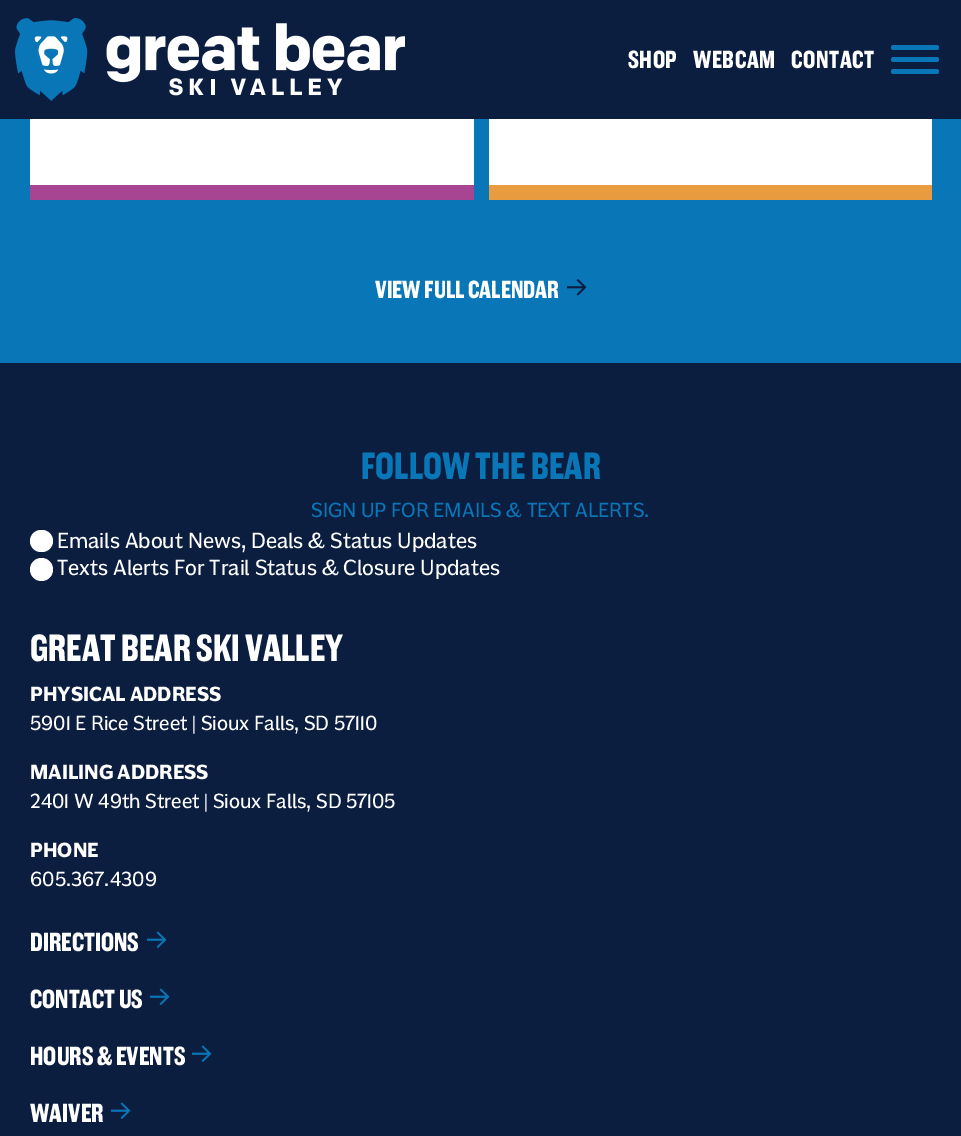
%!PS
<< /PageSize [961 1136] >> setpagedevice
/rgb { 3 { 255 div 3 1 roll } repeat setrgbcolor } def
/font { [ exch dup neg 0 0 3 -1 roll 0 0 ] selectfont } def
/circle { newpath 0 360 arc closepath } def
/roundrect { 5 dict begin { /r /h /w /y /x } { exch def } forall
  x r add y moveto x w add y 2 copy h add r arct x w add y h add x 1 index r arct
  x y h add x y r arct x y 2 copy exch w add exch r arct closepath end } def
/picture { 5 dict begin { /h /w /y /x /name } { exch def } forall
  gsave x y translate w h scale
  w h 8 [w 0 0 h 0 0] name (r) file false 3 colorimage grestore end } def
0 1136 translate 1 -1 scale
4 setmiterlimit
8 118 183 rgb
0 0 961 1136 rectfill
12 30 64 rgb
0 0 961 119 rectfill
(img/1.rgb) 15 18 390 83 picture
8 118 183 rgb
891 45 48 5 2.5 roundrect fill
891 57 48 5 2.5 roundrect fill
891 69 48 5 2.5 roundrect fill
[
  [30 119 444 66 255 255 255]
  [30 185 444 15 168 69 146]
  [489 119 443 66 255 255 255]
  [489 185 443 15 232 155 63]
] { aload pop rgb rectfill } forall
(img/2.rgb) 567 279 20 17 picture
12 30 64 rgb
0 363 961 773 rectfill
255 255 255 rgb
30 530 23 22 11 roundrect fill
41.5 569.5 11.5 circle fill
(img/3.rgb) 147 931 20 17 picture
(img/3.rgb) 150 988 20 17 picture
(img/3.rgb) 192 1045 20 17 picture
(img/3.rgb) 111 1102 20 17 picture
/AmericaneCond-Bold 25.5 font
628 68 moveto 0.5 0 (SHOP) ashow
693 68 moveto 0.5 0 (WEBCAM) ashow
791 68 moveto 0.5 0 (CONTACT) ashow
375 298 moveto (VIEW FULL CALENDAR) show
/AmericaneCond-Bold 39 font
8 118 183 rgb
361 479 moveto (FOLLOW THE BEAR) show
/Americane-Regular 21 font
311 517 moveto (SIGN UP FOR EMAILS & TEXT ALERTS.) show
/Americane-Regular 22.5 font
255 255 255 rgb
57 548 moveto (Emails About News, Deals & Status Updates) show
57 575 moveto (Texts Alerts For Trail Status & Closure Updates) show
/AmericaneCond-Bold 39 font
30 661 moveto (GREAT BEAR SKI VALLEY) show
/Americane-Bold 21 font
30 701 moveto (PHYSICAL ADDRESS) show
/Americane-Regular 21 font
30 730 moveto (5901 E Rice Street | Sioux Falls, SD 57110) show
/Americane-Bold 21 font
30 779 moveto (MAILING ADDRESS) show
/Americane-Regular 21 font
30 808 moveto (2401 W 49th Street | Sioux Falls, SD 57105) show
/Americane-Bold 21 font
30 857 moveto (PHONE) show
/Americane-Regular 21 font
30 886 moveto (605.367.4309) show
/AmericaneCond-Bold 27 font
[
  [(DIRECTIONS) 30 951]
  [(CONTACT US) 30 1008]
  [(HOURS & EVENTS) 30 1065]
  [(WAIVER) 30 1122]
] { aload pop moveto show } forall
showpage
